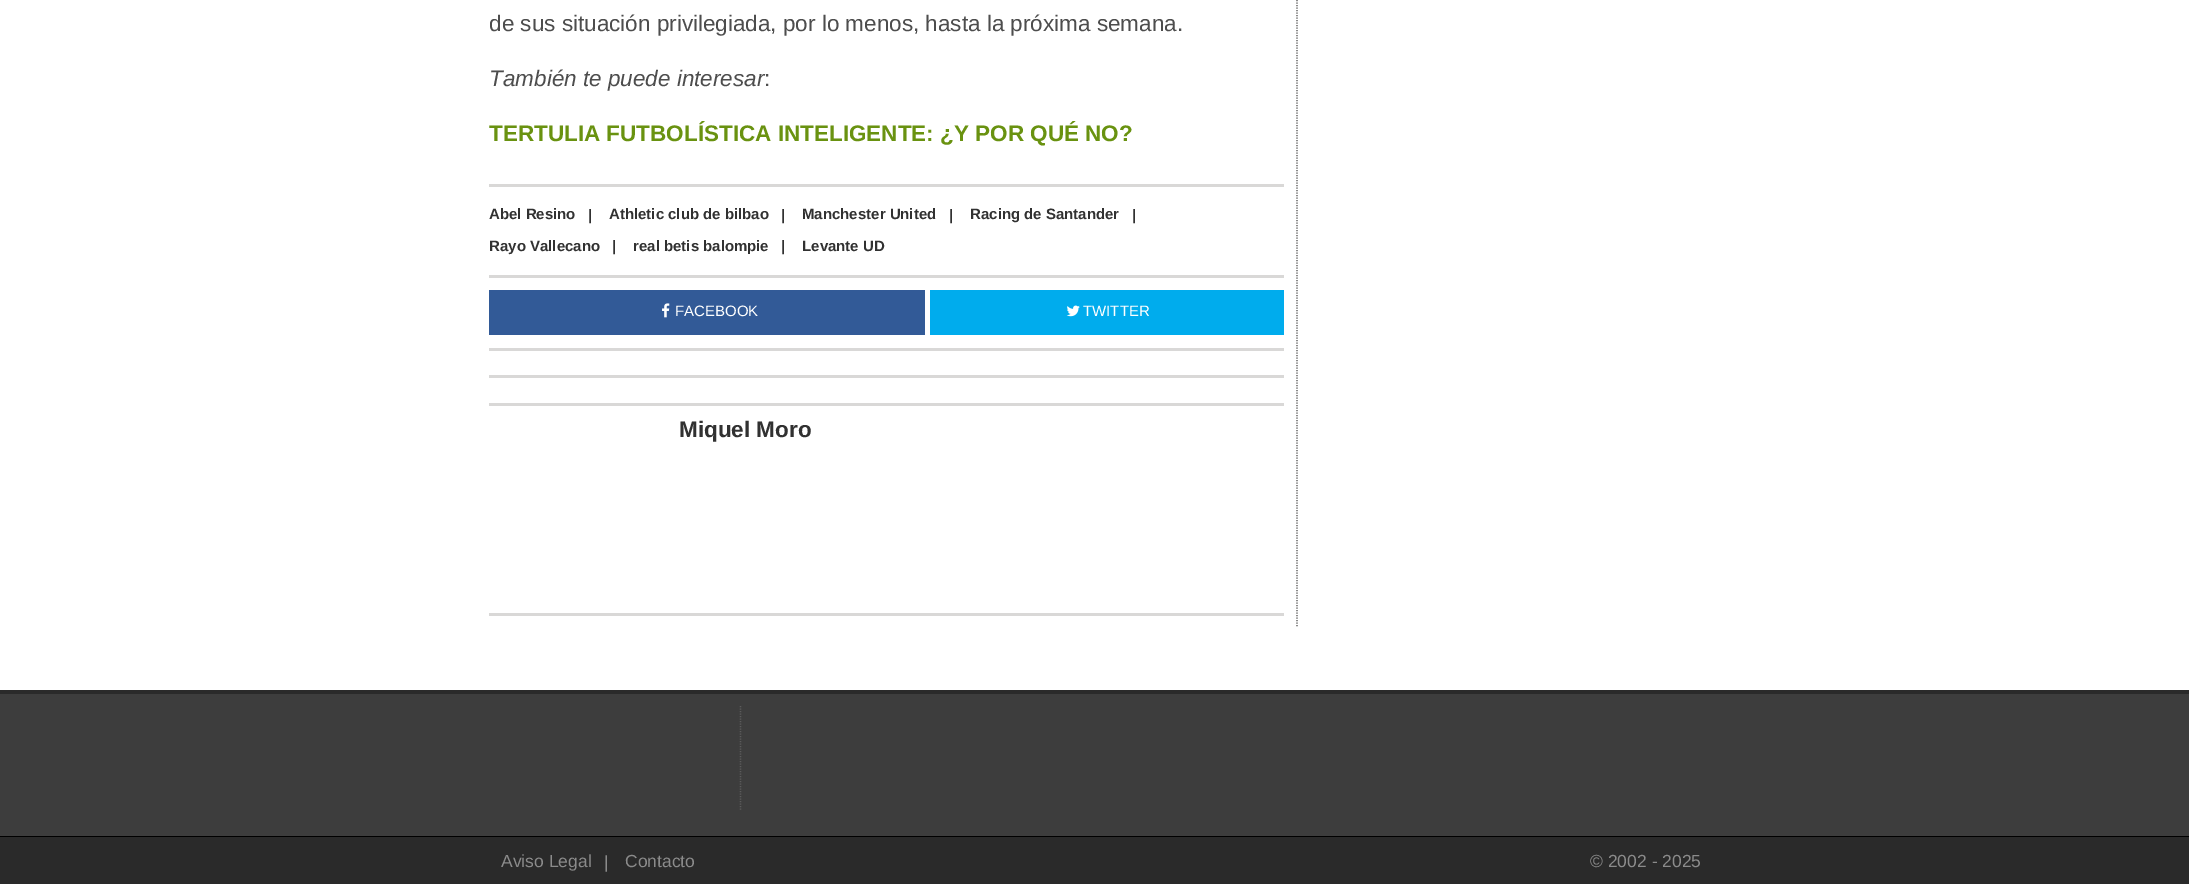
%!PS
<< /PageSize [2189 884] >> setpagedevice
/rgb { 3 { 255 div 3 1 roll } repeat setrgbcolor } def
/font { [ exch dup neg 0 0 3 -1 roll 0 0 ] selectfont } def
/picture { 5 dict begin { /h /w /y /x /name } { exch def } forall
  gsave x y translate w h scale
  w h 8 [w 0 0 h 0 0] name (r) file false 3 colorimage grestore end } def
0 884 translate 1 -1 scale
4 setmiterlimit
255 255 255 rgb
0 0 2189 884 rectfill
96 95 95 rgb
1.2 setlinewidth
[1.25 1.25] 0 setdash
1297 -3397.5 moveto 1297 627.5 lineto stroke
[
  [489 613 795 3 217 216 215]
  [489 184 795 3 217 216 215]
  [489 275 795 3 217 216 215]
  [489 348 795 3 217 216 215]
  [489 290 436 45 50 90 151]
] { aload pop rgb rectfill } forall
(img/1.rgb) 662 303 8 15 picture
0 172 237 rgb
930 290 354 45 rectfill
(img/2.rgb) 1066 305 14 12 picture
[
  [489 375 795 3 217 216 215]
  [489 403 795 3 217 216 215]
  [0 694 2189 142 61 61 61]
  [0 690 2189 4 42 42 42]
] { aload pop rgb rectfill } forall
92 92 92 rgb
740.5 706 moveto 740.5 811 lineto stroke
42 42 42 rgb
0 837 2189 47 rectfill
0 0 0 rgb
0 836 2189 1 rectfill
/LiberationSans-Regular 22.5 font
77 77 77 rgb
489 31 moveto (de sus situación privilegiada, por lo menos, hasta la próxima semana.) show
/LiberationSans-Italic 22.5 font
489 86 moveto (También te puede interesar) show
/LiberationSans-Regular 22.5 font
764 86 moveto (:) show
/LiberationSans-Bold 22.5 font
105 146 16 rgb
489 141 moveto (TERTULIA FUTBOLÍSTICA INTELIGENTE: ¿Y POR QUÉ NO?) show
/LiberationSans-Bold 15 font
49 49 49 rgb
[
  [(Abel Resino) 489 219]
  [(|) 588 220]
  [(Athletic club de bilbao) 609 219]
  [(|) 781 220]
  [(Manchester United) 802 219]
  [(|) 949 220]
  [(Racing de Santander) 970 219]
  [(|) 1132 220]
  [(Rayo Vallecano) 489 251]
  [(|) 612 251]
  [(real betis balompie) 633 251]
  [(|) 781 251]
  [(Levante UD) 802 251]
] { aload pop moveto show } forall
/LiberationSans-Regular 15 font
255 255 255 rgb
675 316 moveto (FACEBOOK) show
1083 316 moveto (TWITTER) show
/LiberationSans-Bold 22.5 font
49 49 49 rgb
679 437 moveto (Miquel Moro) show
/LiberationSans-Regular 17.5 font
139 139 139 rgb
[
  [(Aviso Legal) 501 867]
  [(|) 604 868]
  [(Contacto) 625 867]
  [(© 2002 - 2025) 1590 867]
] { aload pop moveto show } forall
showpage
